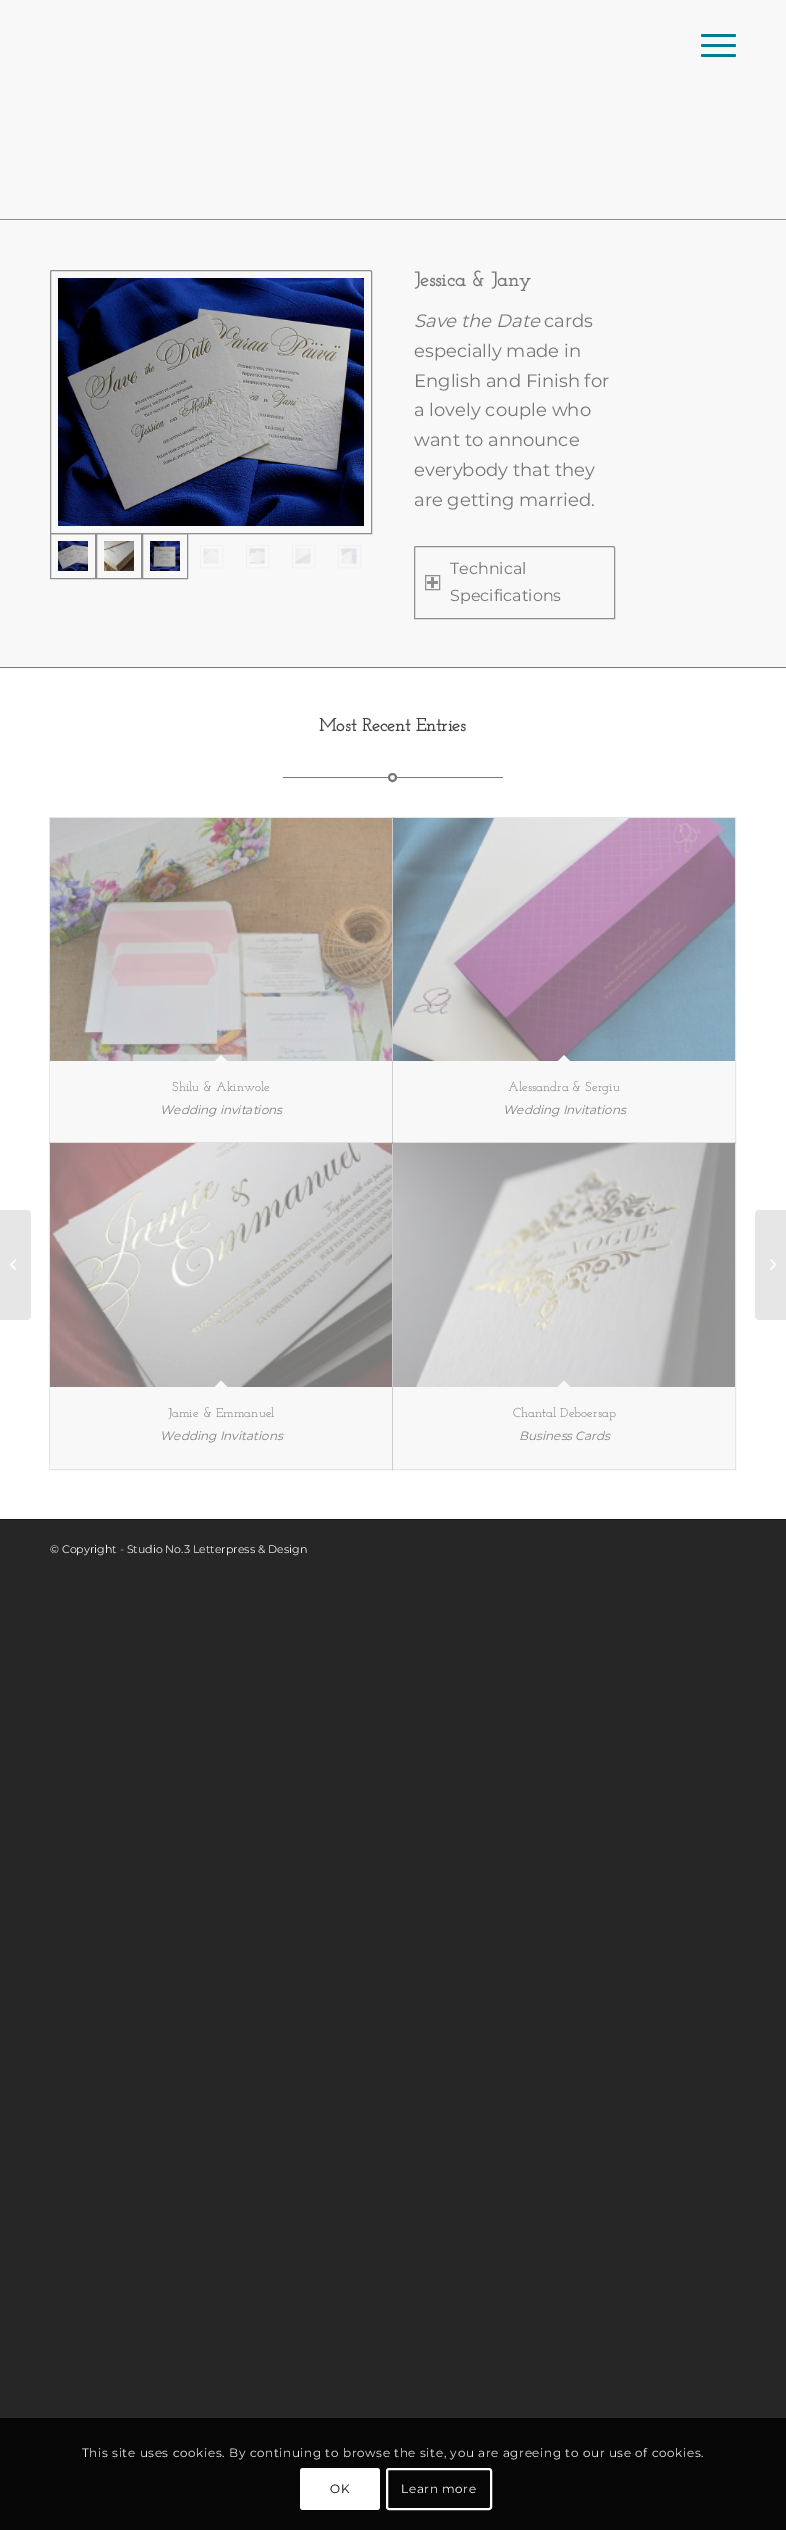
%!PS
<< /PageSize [786 2530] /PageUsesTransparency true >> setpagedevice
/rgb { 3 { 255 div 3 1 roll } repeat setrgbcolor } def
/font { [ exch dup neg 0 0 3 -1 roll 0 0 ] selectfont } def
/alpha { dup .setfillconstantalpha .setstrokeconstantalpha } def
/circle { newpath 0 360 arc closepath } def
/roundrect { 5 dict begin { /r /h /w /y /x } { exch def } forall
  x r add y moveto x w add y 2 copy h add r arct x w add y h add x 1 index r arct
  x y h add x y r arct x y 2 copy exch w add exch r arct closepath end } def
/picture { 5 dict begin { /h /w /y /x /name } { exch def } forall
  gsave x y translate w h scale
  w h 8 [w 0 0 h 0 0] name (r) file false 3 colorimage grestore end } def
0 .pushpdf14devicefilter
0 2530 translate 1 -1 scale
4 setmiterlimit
38 38 38 rgb
0 0 786 2530 rectfill
248 248 248 rgb
0 0 786 667 rectfill
0 126 145 rgb
701 44 35 3 1.5 roundrect fill
701 34 35 3 1.5 roundrect fill
701 54 35 3 1.5 roundrect fill
255 255 255 rgb
0 668 786 851 rectfill
230 230 230 rgb
0 1210 moveto 27 1210 lineto 29 1210 31 1212 31 1214 curveto 31 1316 lineto 31 1318 29 1320 27 1320 curveto 0 1320 lineto closepath fill
(img/1.rgb) 10 1259 7 11 picture
143 143 143 rgb
0 219 786 1 rectfill
52 270.5 moveto 370 270.5 lineto 371 270.5 371.5 271 371.5 272 curveto 371.5 533.5 lineto 50.5 533.5 lineto 50.5 272 lineto 50.5 271 51 270.5 52 270.5 curveto closepath stroke
(img/2.rgb) 58 278 306 248 picture
50.5 533.5 45 45 rectstroke
(img/3.rgb) 58 541 30 30 picture
96.5 533.5 45 45 rectstroke
(img/4.rgb) 104 541 30 30 picture
142.5 533.5 45 45 rectstroke
(img/5.rgb) 150 541 30 30 picture
238 238 238 rgb
0.5 setlinewidth
200.25 545.25 22.5 22.5 rectstroke
(img/6.rgb) 203 548 16 16 picture
246.25 545.25 22.5 22.5 rectstroke
(img/7.rgb) 249 548 16 16 picture
292.25 545.25 22.5 22.5 rectstroke
(img/8.rgb) 295 548 16 16 picture
338.25 545.25 22.5 22.5 rectstroke
(img/9.rgb) 341 548 16 16 picture
143 143 143 rgb
1 setlinewidth
416 546.5 moveto 613 546.5 lineto 614 546.5 614.5 547 614.5 548 curveto 614.5 618.5 lineto 414.5 618.5 lineto 414.5 548 lineto 414.5 547 415 546.5 416 546.5 curveto closepath stroke
425.5 575.5 14 14 rectstroke
[
  [431 577 3 11 143 143 143]
  [427 581 11 3 143 143 143]
  [0 667 786 1 120 120 120]
  [283 777 220 1 120 120 120]
] { aload pop rgb rectfill } forall
255 255 255 rgb
392.5 777.5 3.5 circle gsave fill grestore
120 120 120 rgb
2 setlinewidth
stroke
230 230 230 rgb
1 setlinewidth
49.5 817.5 343 326 rectstroke
248 248 248 rgb
50 818 342 325 rectfill
(img/10.rgb) 50 818 342 243 picture
221 1055 moveto 228 1062 lineto 221 1069 lineto 214 1062 lineto closepath fill
0.1 alpha
0 0 0 rgb
392.5 817.5 343 326 rectstroke
1 alpha
248 248 248 rgb
393 818 342 325 rectfill
(img/11.rgb) 393 818 342 243 picture
564 1055 moveto 571 1062 lineto 564 1069 lineto 557 1062 lineto closepath fill
0.1 alpha
0 0 0 rgb
49.5 1142.5 343 327 rectstroke
1 alpha
248 248 248 rgb
50 1143 342 326 rectfill
(img/12.rgb) 50 1143 342 244 picture
221 1380.5 moveto 228 1387.5 lineto 221 1394.5 lineto 214 1387.5 lineto closepath fill
0.1 alpha
0 0 0 rgb
392.5 1142.5 343 327 rectstroke
1 alpha
248 248 248 rgb
393 1143 342 326 rectfill
(img/13.rgb) 393 1143 342 244 picture
564 1380.5 moveto 571 1387.5 lineto 564 1394.5 lineto 557 1387.5 lineto closepath fill
22 22 22 rgb
0 1519 786 1 rectfill
230 230 230 rgb
759 1210 moveto 786 1210 lineto 786 1320 lineto 759 1320 lineto 757 1320 755 1318 755 1316 curveto 755 1214 lineto 755 1212 757 1210 759 1210 curveto closepath fill
(img/14.rgb) 770 1259 7 11 picture
6 6 6 rgb
0 2418 786 112 rectfill
255 255 255 rgb
300 2468 80 42 3 roundrect fill
2 setlinewidth
387 2469 104 40 2 roundrect stroke
/JosefinSlab-Bold 20 font
120 120 120 rgb
414 286 moveto (Jessica & Jany) show
/Montserrat-ThinItalic 18 font
414 327 moveto (Save the Date) show
/Montserrat-Thin 18 font
[
  [(cards) 544 327]
  [(especially made in) 414 357]
  [(English and Finish for) 414 387]
  [(a lovely couple who) 414 416]
  [(want to announce) 414 446]
  [(everybody that they) 414 476]
  [(are getting married.) 414 506]
] { aload pop moveto show } forall
/Montserrat-Thin 16 font
450 574 moveto (Technical) show
450 601 moveto (Specifications) show
/JosefinSlab-Bold 18 font
68 68 68 rgb
319 731 moveto (Most Recent Entries) show
/JosefinSlab-Thin 13 font
120 120 120 rgb
172 1091 moveto (Shilu & Akinwole) show
/Montserrat-ThinItalic 12 font
128 128 128 rgb
160 1114 moveto (Wedding invitations) show
/JosefinSlab-Thin 13 font
120 120 120 rgb
508 1091 moveto (Alessandra & Sergiu) show
/Montserrat-ThinItalic 12 font
128 128 128 rgb
503 1114 moveto (Wedding Invitations) show
/JosefinSlab-Thin 13 font
120 120 120 rgb
168 1417 moveto (Jamie & Emmanuel) show
/Montserrat-ThinItalic 12 font
128 128 128 rgb
160 1440 moveto (Wedding Invitations) show
/JosefinSlab-Thin 13 font
120 120 120 rgb
513 1417 moveto (Chantal Deboersap) show
/Montserrat-ThinItalic 12 font
128 128 128 rgb
519 1440 moveto (Business Cards) show
/Montserrat-Thin 11 font
238 238 238 rgb
50 1553 moveto (© Copyright - Studio No.3 Letterpress & Design) show
/Montserrat-Thin 12 font
230 230 230 rgb
82 2457 moveto 0.6 0 (This site uses cookies. By continuing to browse the site, you are agreeing to our use of cookies.) ashow
0 0 0 rgb
330 2493 moveto 0.6 0 (OK) ashow
255 255 255 rgb
401 2493 moveto 0.6 0 (Learn more) ashow
.poppdf14devicefilter showpage
